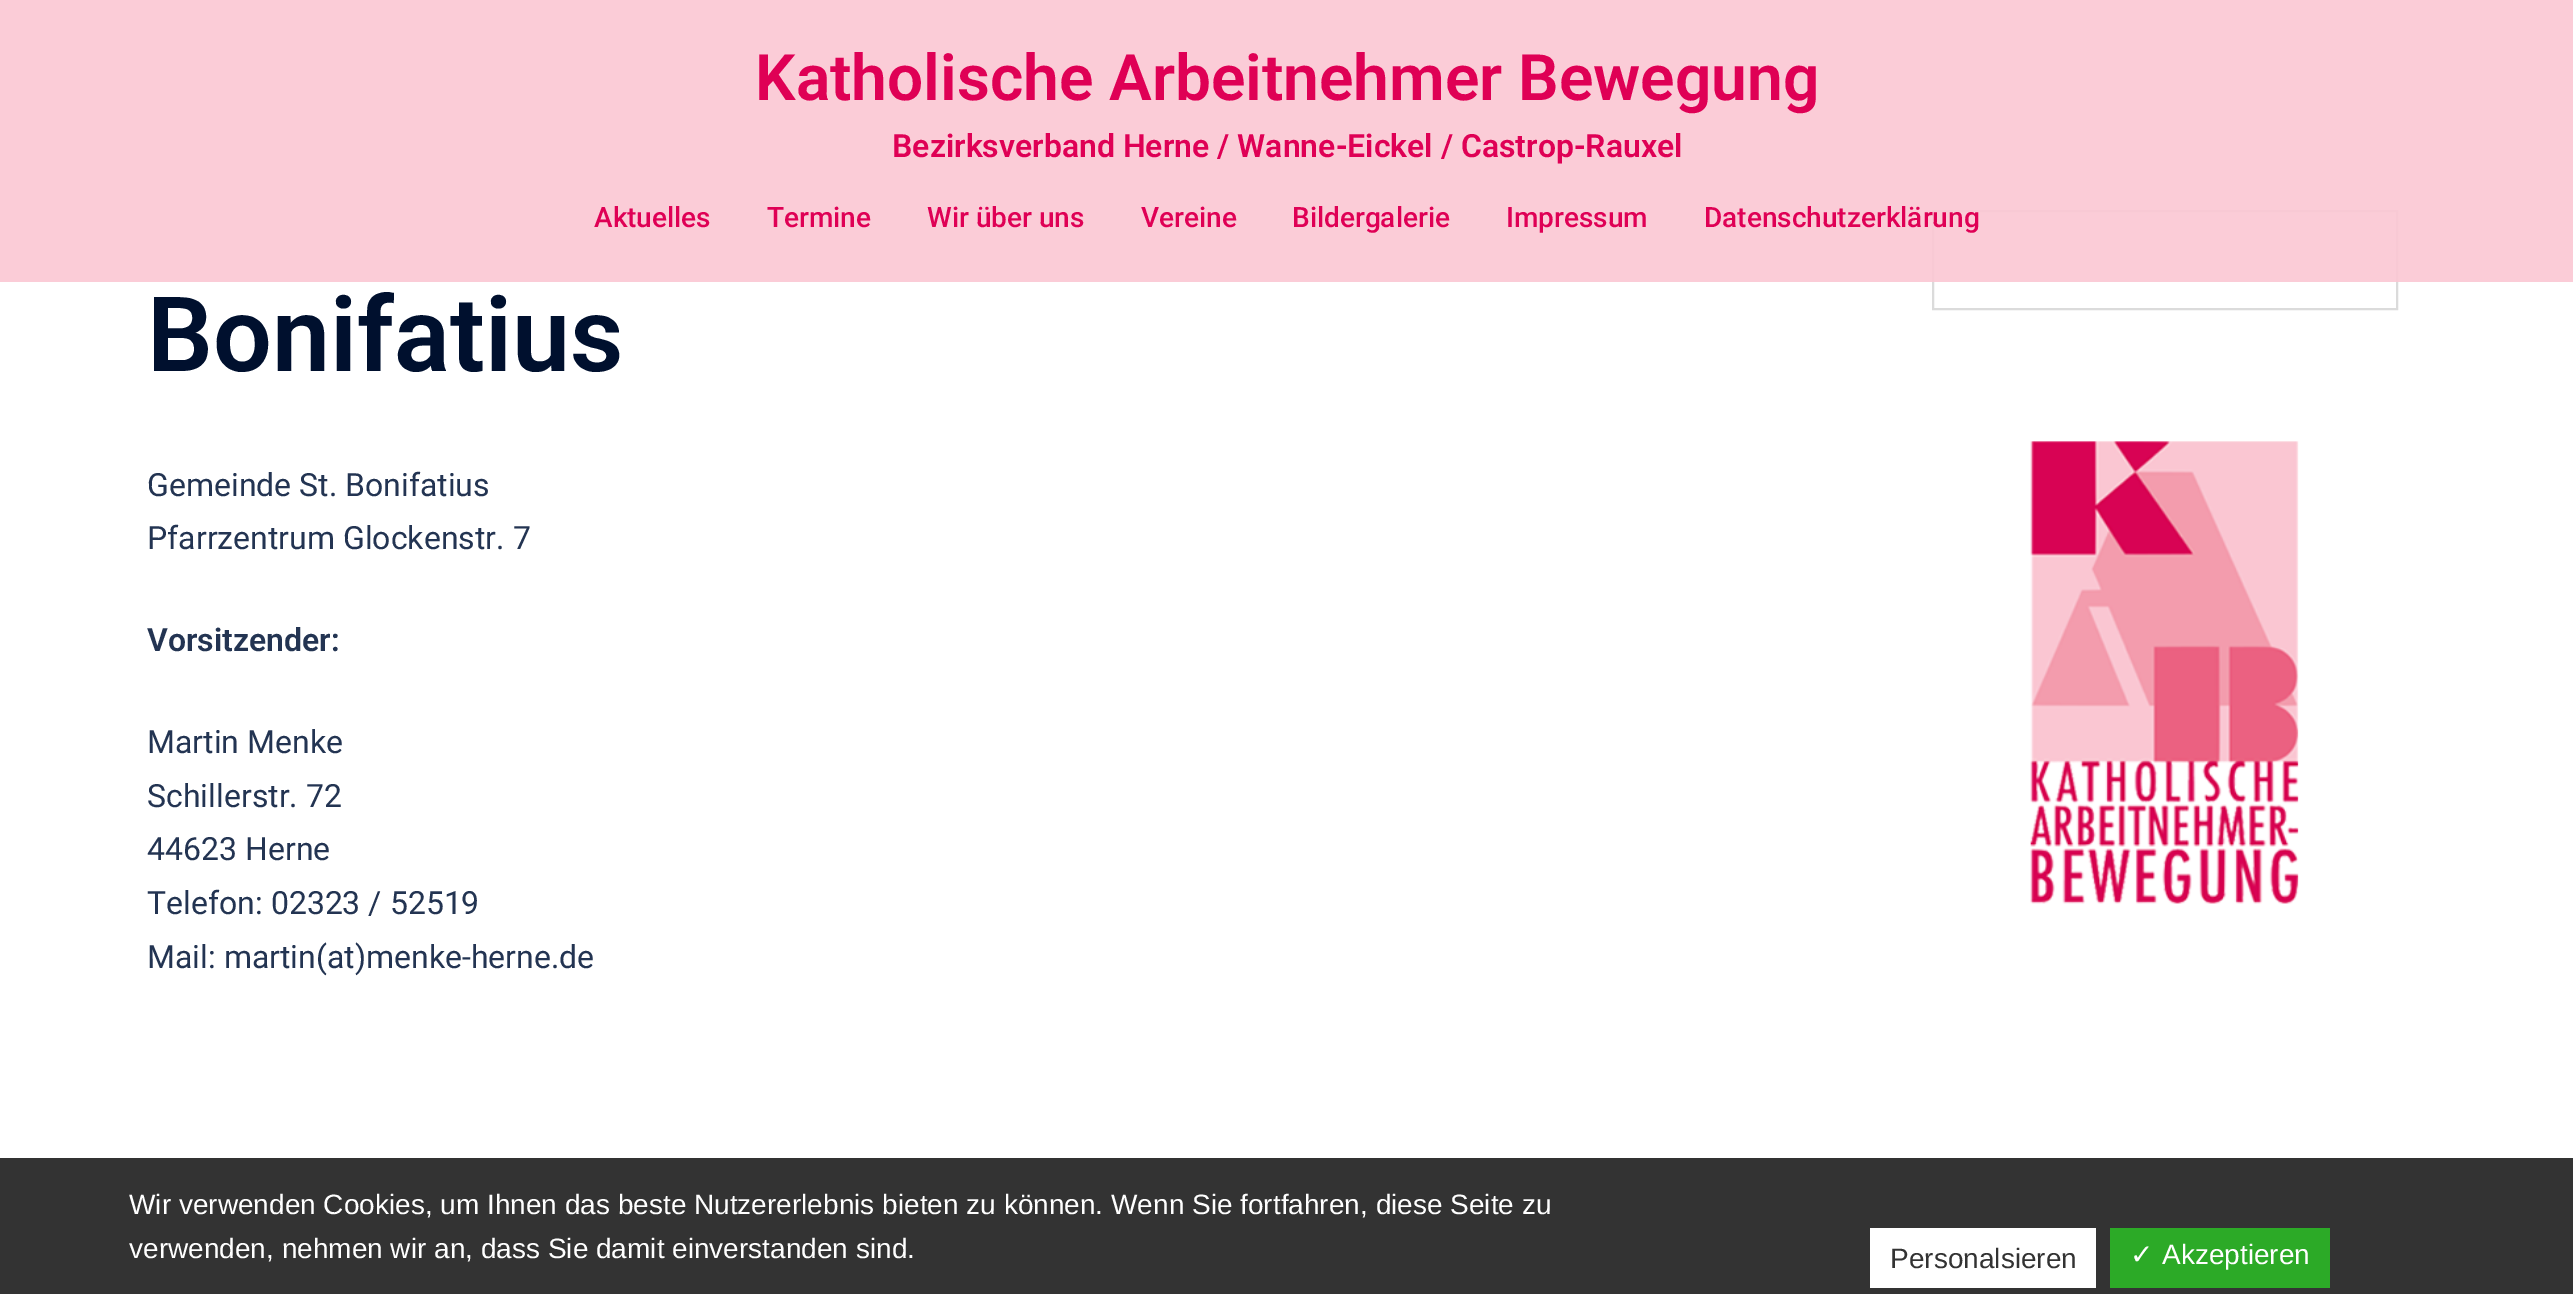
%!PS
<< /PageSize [2573 1294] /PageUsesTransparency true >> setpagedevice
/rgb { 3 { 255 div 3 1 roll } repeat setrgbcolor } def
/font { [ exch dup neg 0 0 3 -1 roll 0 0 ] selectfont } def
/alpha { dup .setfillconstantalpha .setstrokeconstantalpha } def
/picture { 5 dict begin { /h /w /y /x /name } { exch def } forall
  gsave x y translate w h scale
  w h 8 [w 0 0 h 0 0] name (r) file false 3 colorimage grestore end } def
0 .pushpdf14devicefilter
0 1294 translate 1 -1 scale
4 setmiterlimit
255 255 255 rgb
0 0 2573 1294 rectfill
219 219 219 rgb
2 setlinewidth
1933 211 464 98 rectstroke
0.9 alpha
251 199 211 rgb
0 0 2573 282 rectfill
1 alpha
(img/1.rgb) 2030 441 269 463 picture
[
  [0 1158 2573 136 51 51 51]
  [1870 1228 226 60 255 255 255]
  [2110 1228 220 60 44 170 39]
] { aload pop rgb rectfill } forall
/Roboto-SemiBold 64 font
223 0 85 rgb
755 100 moveto (Katholische Arbeitnehmer Bewegung) show
/Roboto-SemiBold 32 font
892 157 moveto (Bezirksverband Herne / Wanne-Eickel / Castrop-Rauxel) show
/Roboto-Medium 28 font
[
  [(Aktuelles) 594 227]
  [(Termine) 767 227]
  [(Wir über uns) 927 227]
  [(Vereine) 1141 227]
  [(Bildergalerie) 1292 227]
  [(Impressum) 1506 227]
  [(Datenschutzerklärung) 1704 227]
] { aload pop moveto show } forall
/Roboto-SemiBold 104 font
0 16 46 rgb
147 371 moveto (Bonifatius) show
/Roboto-Regular 32 font
35 52 82 rgb
147 496 moveto (Gemeinde St. Bonifatius) show
147 549 moveto (Pfarrzentrum Glockenstr. 7) show
/Roboto-SemiBold 32 font
147 651 moveto (Vorsitzender:) show
/Roboto-Regular 32 font
[
  [(Martin Menke) 147 753]
  [(Schillerstr. 72) 147 807]
  [(44623 Herne) 147 860]
  [(Telefon: 02323 / 52519) 147 914]
  [(Mail: martin\(at\)menke-herne.de) 147 968]
] { aload pop moveto show } forall
/LiberationSans-Regular 28 font
255 255 255 rgb
129 1214 moveto (Wir verwenden Cookies, um Ihnen das beste Nutzererlebnis bieten zu können. Wenn Sie fortfahren, diese Seite zu) show
129 1258 moveto (verwenden, nehmen wir an, dass Sie damit einverstanden sind.) show
51 51 51 rgb
1890 1268 moveto (Personalsieren) show
/DejaVuSans-Regular 28 font
255 255 255 rgb
2130 1264 moveto (✓) show
/LiberationSans-Regular 28 font
2162 1264 moveto (Akzeptieren) show
.poppdf14devicefilter showpage
